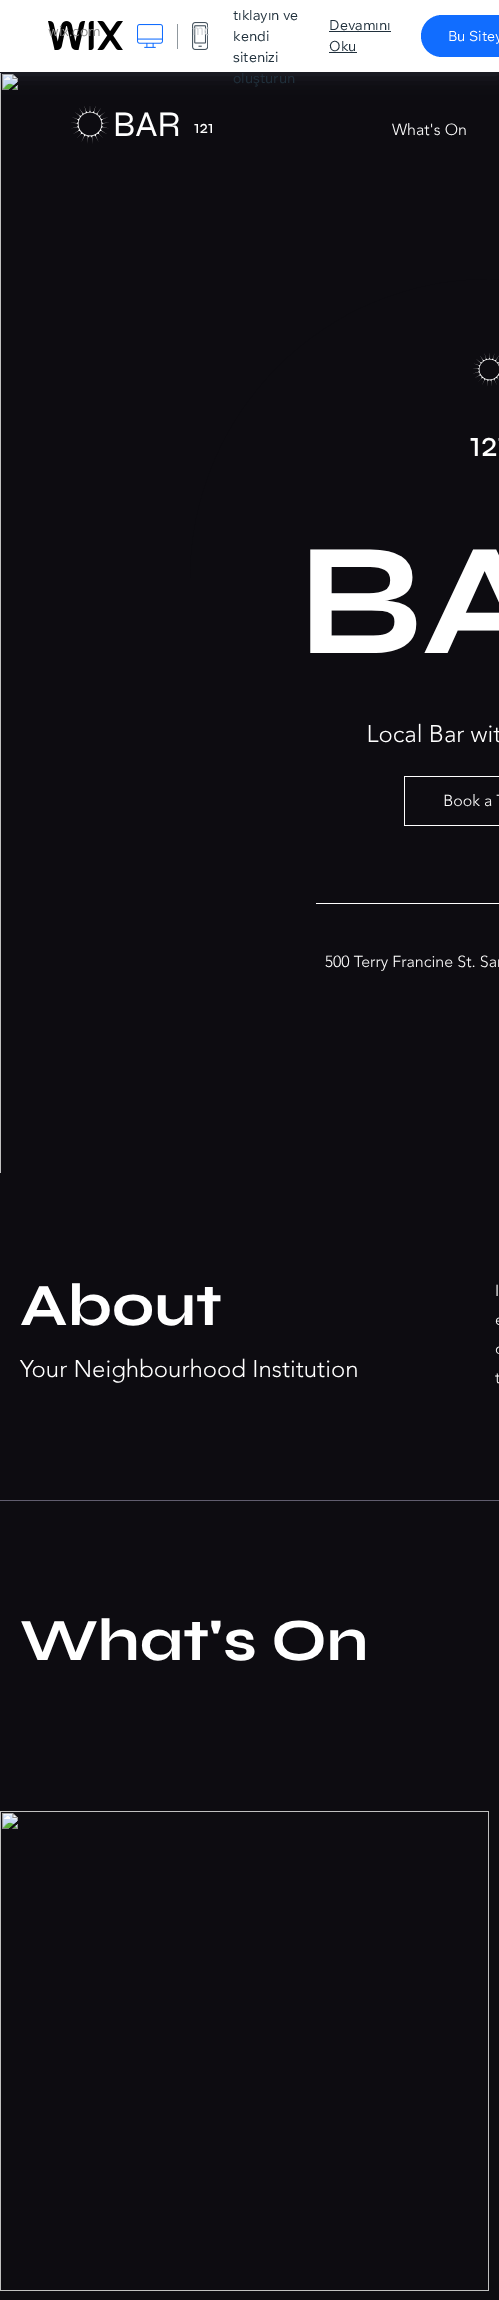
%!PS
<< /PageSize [499 2300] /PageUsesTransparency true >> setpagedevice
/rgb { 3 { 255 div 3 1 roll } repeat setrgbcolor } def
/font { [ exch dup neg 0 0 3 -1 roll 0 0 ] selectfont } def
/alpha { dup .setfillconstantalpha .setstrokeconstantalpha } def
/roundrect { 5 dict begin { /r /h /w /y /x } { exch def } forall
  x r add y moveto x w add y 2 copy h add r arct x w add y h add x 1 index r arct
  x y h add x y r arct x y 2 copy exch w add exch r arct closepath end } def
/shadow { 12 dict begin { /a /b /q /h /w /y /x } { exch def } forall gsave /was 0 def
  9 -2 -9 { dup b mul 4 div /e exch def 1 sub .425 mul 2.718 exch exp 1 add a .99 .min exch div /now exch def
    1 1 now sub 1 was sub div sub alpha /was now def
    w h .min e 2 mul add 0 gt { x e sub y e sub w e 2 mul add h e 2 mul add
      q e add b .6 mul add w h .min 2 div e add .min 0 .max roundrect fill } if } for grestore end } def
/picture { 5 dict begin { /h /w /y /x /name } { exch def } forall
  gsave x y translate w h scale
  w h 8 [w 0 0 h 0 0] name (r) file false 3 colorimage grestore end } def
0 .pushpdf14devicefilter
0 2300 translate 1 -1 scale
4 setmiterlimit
255 255 255 rgb
0 0 499 2300 rectfill
(img/4.rgb) 0 72 499 2228 picture
129 162 182 rgb
0 2 499 72 0 9 0.2 shadow
255 255 255 rgb
0 0 499 72 rectfill
(img/1.rgb) 48 21 75 29 picture
(img/2.rgb) 137 24 26 24 picture
144 152 158 rgb
177 24 1 25 rectfill
(img/3.rgb) 192 22 16 28 picture
32 48 60 rgb
329 31 62 1 rectfill
329 52 28 1 rectfill
17 109 255 rgb
421 15 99 42 21 roundrect fill
/WixMadeforText-Regular 14 font
143 143 143 rgb
48 36 moveto (wix.com) show
gsave
192 22 17 28 rectclip
/LiberationSans-Regular 14 font
208 212 215 rgb
192 35 moveto (mo) show
grestore
32 48 60 rgb
[
  [(tıklayın ve) 233 20]
  [(kendi) 233 41]
  [(sitenizi) 233 62]
  [(oluşturun) 233 83]
  [(Devamını) 329 30]
  [(Oku) 329 51]
] { aload pop moveto show } forall
255 255 255 rgb
448 41 moveto (Bu Sitey) show
.poppdf14devicefilter showpage
